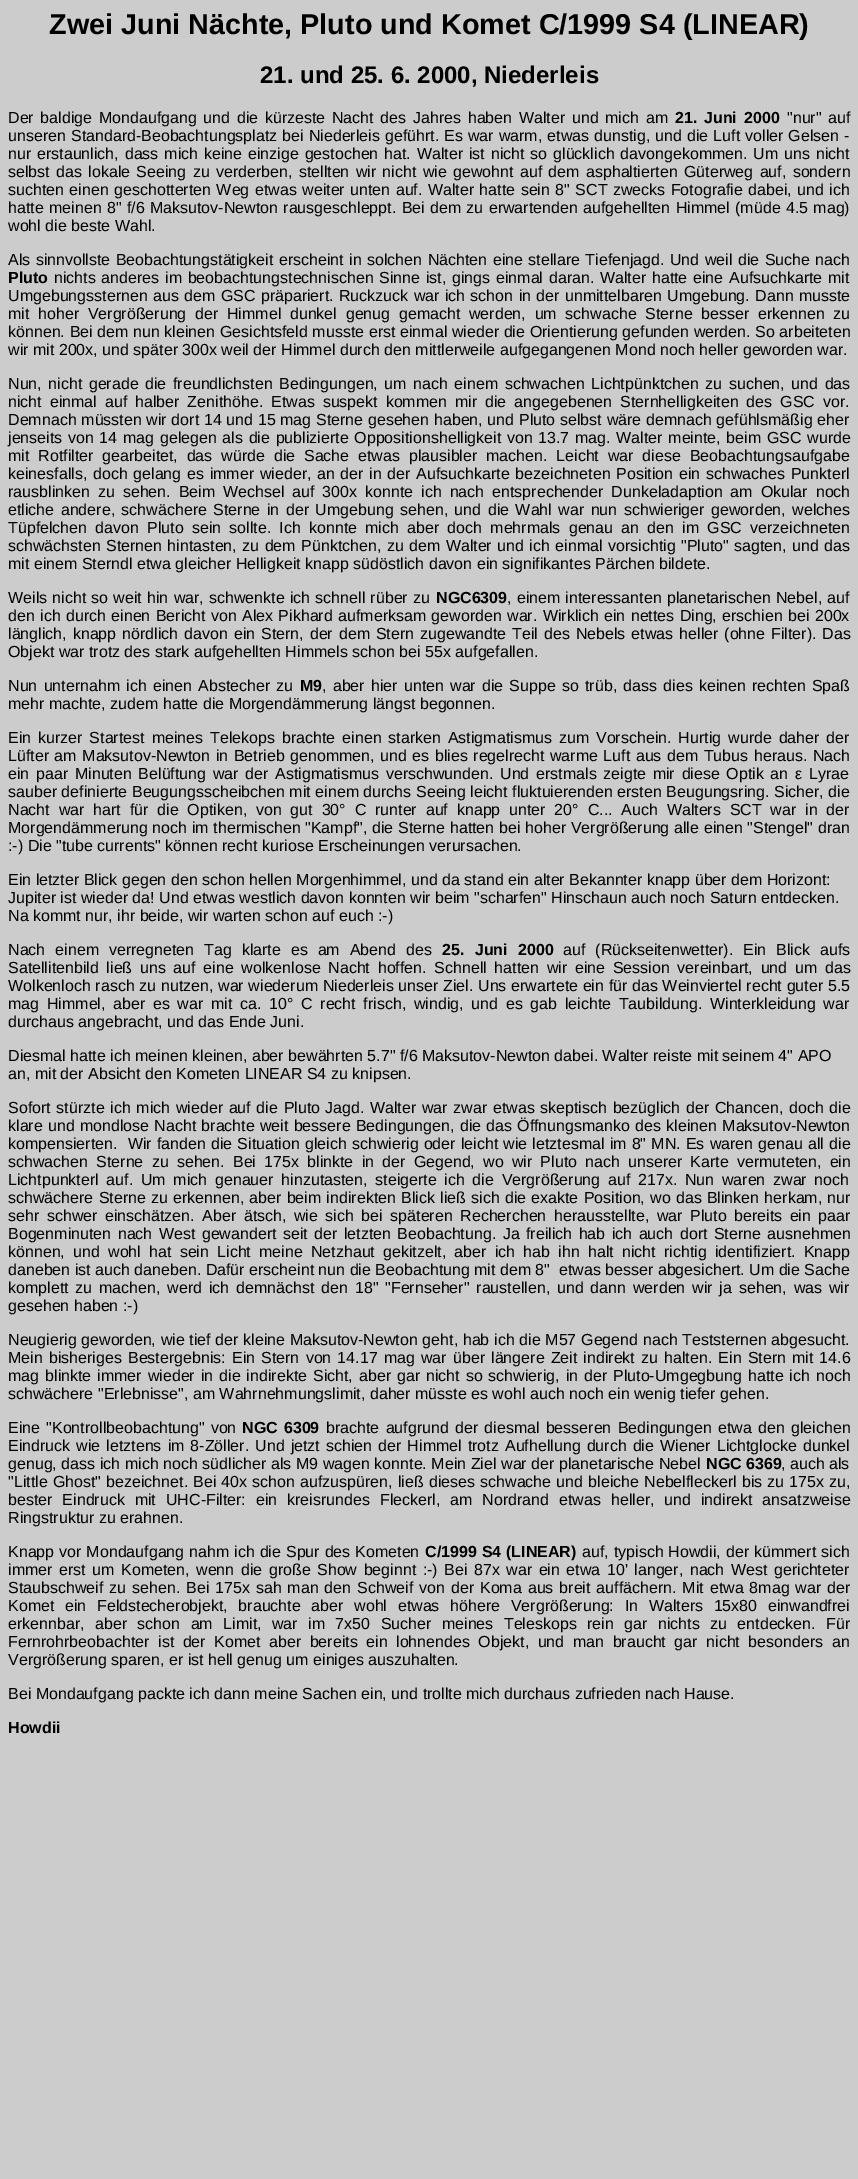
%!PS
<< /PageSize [858 2179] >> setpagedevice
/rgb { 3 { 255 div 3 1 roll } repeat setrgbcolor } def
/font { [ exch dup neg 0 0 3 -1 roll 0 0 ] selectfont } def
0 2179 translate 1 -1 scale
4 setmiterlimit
204 204 204 rgb
0 0 858 2179 rectfill
/LiberationSans-Bold 28.8 font
0 0 0 rgb
49 34 moveto (Zwei Juni Nächte, Pluto und Komet C/1999 S4 \(LINEAR\)) show
/LiberationSans-Bold 24 font
260 83 moveto (21. und 25. 6. 2000, Niederleis) show
/LiberationSans-Regular 16 font
8 123 moveto 2.25 0 32 (Der baldige Mondaufgang und die kürzeste Nacht des Jahres haben Walter und mich am) widthshow
/LiberationSans-Bold 16 font
675 123 moveto 2.25 0 32 (21. Juni) widthshow
744 123 moveto (2000) show
/LiberationSans-Regular 16 font
787 123 moveto 2.25 0 32 ("nur" auf) widthshow
8 141 moveto 0.6 0 32 (unseren Standard-Beobachtungsplatz bei Niederleis geführt. Es war warm, etwas dunstig, und die Luft voller Gelsen -) widthshow
8 159 moveto 1.4 0 32 (nur erstaunlich, dass mich keine einzige gestochen hat. Walter ist nicht so glücklich davongekommen. Um uns nicht) widthshow
8 177 moveto 1.9 0 32 (selbst das lokale Seeing zu verderben, stellten wir nicht wie gewohnt auf dem asphaltierten Güterweg auf, sondern) widthshow
8 195 moveto 1 0 32 (suchten einen geschotterten Weg etwas weiter unten auf. Walter hatte sein 8" SCT zwecks Fotografie dabei, und ich) widthshow
8 213 moveto 0.9 0 32 (hatte meinen 8" f/6 Maksutov-Newton rausgeschleppt. Bei dem zu erwartenden aufgehellten Himmel \(müde 4.5 mag\)) widthshow
8 231 moveto (wohl die beste Wahl.) show
8 265 moveto 1 0 32 (Als sinnvollste Beobachtungstätigkeit erscheint in solchen Nächten eine stellare Tiefenjagd. Und weil die Suche nach) widthshow
/LiberationSans-Bold 16 font
8 283 moveto (Pluto) show
/LiberationSans-Regular 16 font
54 283 moveto 1.25 0 32 (nichts anderes im beobachtungstechnischen Sinne ist, gings einmal daran. Walter hatte eine Aufsuchkarte mit) widthshow
8 301 moveto 0.9 0 32 (Umgebungssternen aus dem GSC präpariert. Ruckzuck war ich schon in der unmittelbaren Umgebung. Dann musste) widthshow
8 319 moveto 4.25 0 32 (mit hoher Vergrößerung der Himmel dunkel genug gemacht werden, um schwache Sterne besser erkennen zu) widthshow
8 337 moveto 0.2 0 32 (können. Bei dem nun kleinen Gesichtsfeld musste erst einmal wieder die Orientierung gefunden werden. So arbeiteten) widthshow
8 355 moveto (wir mit 200x, und später 300x weil der Himmel durch den mittlerweile aufgegangenen Mond noch heller geworden war.) show
8 389 moveto 2.1 0 32 (Nun, nicht gerade die freundlichsten Bedingungen, um nach einem schwachen Lichtpünktchen zu suchen, und das) widthshow
8 407 moveto 3.5 0 32 (nicht einmal auf halber Zenithöhe. Etwas suspekt kommen mir die angegebenen Sternhelligkeiten des GSC vor.) widthshow
8 425 moveto 0.25 0 32 (Demnach müssten wir dort 14 und 15 mag Sterne gesehen haben, und Pluto selbst wäre demnach gefühlsmäßig eher) widthshow
8 443 moveto 1.25 0 32 (jenseits von 14 mag gelegen als die publizierte Oppositionshelligkeit von 13.7 mag. Walter meinte, beim GSC wurde) widthshow
8 461 moveto 4.4 0 32 (mit Rotfilter gearbeitet, das würde die Sache etwas plausibler machen. Leicht war diese Beobachtungsaufgabe) widthshow
8 479 moveto 1.25 0 32 (keinesfalls, doch gelang es immer wieder, an der in der Aufsuchkarte bezeichneten Position ein schwaches Punkterl) widthshow
8 497 moveto 3.5 0 32 (rausblinken zu sehen. Beim Wechsel auf 300x konnte ich nach entsprechender Dunkeladaption am Okular noch) widthshow
8 515 moveto 2 0 32 (etliche andere, schwächere Sterne in der Umgebung sehen, und die Wahl war nun schwieriger geworden, welches) widthshow
8 533 moveto 3.75 0 32 (Tüpfelchen davon Pluto sein sollte. Ich konnte mich aber doch mehrmals genau an den im GSC verzeichneten) widthshow
8 551 moveto 1 0 32 (schwächsten Sternen hintasten, zu dem Pünktchen, zu dem Walter und ich einmal vorsichtig "Pluto" sagten, und das) widthshow
8 569 moveto (mit einem Sterndl etwa gleicher Helligkeit knapp südöstlich davon ein signifikantes Pärchen bildete.) show
8 603 moveto 0.75 0 32 (Weils nicht so weit hin war, schwenkte ich schnell rüber zu) widthshow
/LiberationSans-Bold 16 font
436 603 moveto (NGC6309) show
/LiberationSans-Regular 16 font
507 603 moveto 0.75 0 32 (, einem interessanten planetarischen Nebel, auf) widthshow
8 621 moveto 0.9 0 32 (den ich durch einen Bericht von Alex Pikhard aufmerksam geworden war. Wirklich ein nettes Ding, erschien bei 200x) widthshow
8 639 moveto 1.5 0 32 (länglich, knapp nördlich davon ein Stern, der dem Stern zugewandte Teil des Nebels etwas heller \(ohne Filter\). Das) widthshow
8 657 moveto (Objekt war trotz des stark aufgehellten Himmels schon bei 55x aufgefallen.) show
8 691 moveto 1.75 0 32 (Nun unternahm ich einen Abstecher zu) widthshow
/LiberationSans-Bold 16 font
300 691 moveto (M9) show
/LiberationSans-Regular 16 font
322 691 moveto 1.75 0 32 (, aber hier unten war die Suppe so trüb, dass dies keinen rechten Spaß) widthshow
8 709 moveto (mehr machte, zudem hatte die Morgendämmerung längst begonnen.) show
8 743 moveto 2.5 0 32 (Ein kurzer Startest meines Telekops brachte einen starken Astigmatismus zum Vorschein. Hurtig wurde daher der) widthshow
8 761 moveto 1.1 0 32 (Lüfter am Maksutov-Newton in Betrieb genommen, und es blies regelrecht warme Luft aus dem Tubus heraus. Nach) widthshow
8 779 moveto 2.25 0 32 (ein paar Minuten Belüftung war der Astigmatismus verschwunden. Und erstmals zeigte mir diese Optik an ε Lyrae) widthshow
8 797 moveto 0.1 0 32 (sauber definierte Beugungsscheibchen mit einem durchs Seeing leicht fluktuierenden ersten Beugungsring. Sicher, die) widthshow
8 815 moveto 4.4 0 32 (Nacht war hart für die Optiken, von gut 30° C runter auf knapp unter 20° C... Auch Walters SCT war in der) widthshow
8 833 moveto 0.25 0 32 (Morgendämmerung noch im thermischen "Kampf", die Sterne hatten bei hoher Vergrößerung alle einen "Stengel" dran) widthshow
[
  [(:-\) Die "tube currents" können recht kuriose Erscheinungen verursachen.) 8 851]
  [(Ein letzter Blick gegen den schon hellen Morgenhimmel, und da stand ein alter Bekannter knapp über dem Horizont:) 8 885]
  [(Jupiter ist wieder da! Und etwas westlich davon konnten wir beim "scharfen" Hinschaun auch noch Saturn entdecken.) 8 903]
  [(Na kommt nur, ihr beide, wir warten schon auf euch :-\)) 8 921]
] { aload pop moveto show } forall
8 955 moveto 5.5 0 32 (Nach einem verregneten Tag klarte es am Abend des) widthshow
/LiberationSans-Bold 16 font
442 955 moveto 6 0 32 (25. Juni 2000) widthshow
/LiberationSans-Regular 16 font
563 955 moveto 5.5 0 32 (auf \(Rückseitenwetter\). Ein Blick aufs) widthshow
8 973 moveto 3.25 0 32 (Satellitenbild ließ uns auf eine wolkenlose Nacht hoffen. Schnell hatten wir eine Session vereinbart, und um das) widthshow
8 991 moveto 0.25 0 32 (Wolkenloch rasch zu nutzen, war wiederum Niederleis unser Ziel. Uns erwartete ein für das Weinviertel recht guter 5.5) widthshow
8 1009 moveto 3.25 0 32 (mag Himmel, aber es war mit ca. 10° C recht frisch, windig, und es gab leichte Taubildung. Winterkleidung war) widthshow
[
  [(durchaus angebracht, und das Ende Juni.) 8 1027]
  [(Diesmal hatte ich meinen kleinen, aber bewährten 5.7" f/6 Maksutov-Newton dabei. Walter reiste mit seinem 4" APO) 8 1061]
  [(an, mit der Absicht den Kometen LINEAR S4 zu knipsen.) 8 1079]
] { aload pop moveto show } forall
8 1113 moveto 1.25 0 32 (Sofort stürzte ich mich wieder auf die Pluto) widthshow
325 1113 moveto 1.25 0 32 (Jagd. Walter war zwar etwas skeptisch bezüglich der Chancen, doch die) widthshow
8 1131 moveto 0.75 0 32 (klare und mondlose Nacht brachte weit bessere Bedingungen, die das Öffnungsmanko des kleinen Maksutov-Newton) widthshow
8 1149 moveto 0.7 0 32 (kompensierten.  Wir fanden die Situation gleich schwierig oder leicht wie letztesmal im 8" MN. Es waren genau all die) widthshow
8 1167 moveto 3.75 0 32 (schwachen Sterne zu sehen. Bei 175x blinkte in der Gegend, wo wir Pluto nach unserer Karte vermuteten, ein) widthshow
8 1185 moveto 3.25 0 32 (Lichtpunkterl auf. Um mich genauer hinzutasten, steigerte ich die Vergrößerung auf 217x. Nun waren zwar noch) widthshow
8 1203 moveto 0.75 0 32 (schwächere Sterne zu erkennen, aber beim indirekten Blick ließ sich die exakte Position, wo das Blinken herkam, nur) widthshow
8 1221 moveto 3.1 0 32 (sehr schwer einschätzen. Aber ätsch, wie sich bei späteren Recherchen herausstellte, war Pluto bereits ein paar) widthshow
8 1239 moveto 2 0 32 (Bogenminuten nach West gewandert seit der letzten Beobachtung. Ja freilich hab ich auch dort Sterne ausnehmen) widthshow
8 1257 moveto 3.75 0 32 (können, und wohl hat sein Licht meine Netzhaut gekitzelt, aber ich hab ihn halt nicht richtig identifiziert. Knapp) widthshow
8 1275 moveto (daneben ist auch daneben. Dafür erscheint nun die Beobachtung mit dem 8"  etwas besser abgesichert. Um die Sache) show
8 1293 moveto 2.4 0 32 (komplett zu machen, werd ich demnächst den 18" "Fernseher" raustellen, und dann werden wir ja sehen, was wir) widthshow
8 1311 moveto (gesehen haben :-\)) show
8 1345 moveto 0.25 0 32 (Neugierig geworden, wie tief der kleine Maksutov-Newton geht, hab ich die M57 Gegend nach Teststernen abgesucht.) widthshow
8 1363 moveto 1.7 0 32 (Mein bisheriges Bestergebnis: Ein Stern von 14.17 mag war über längere Zeit indirekt zu halten. Ein Stern mit 14.6) widthshow
8 1381 moveto 1.5 0 32 (mag blinkte immer wieder in die indirekte Sicht, aber gar nicht so schwierig, in der Pluto-Umgegbung hatte ich noch) widthshow
8 1399 moveto (schwächere "Erlebnisse", am Wahrnehmungslimit, daher müsste es wohl auch noch ein wenig tiefer gehen.) show
8 1433 moveto 1.75 0 32 (Eine "Kontrollbeobachtung" von) widthshow
/LiberationSans-Bold 16 font
242 1433 moveto 1.75 0 32 (NGC 6309) widthshow
/LiberationSans-Regular 16 font
326 1433 moveto 1.75 0 32 (brachte aufgrund der diesmal besseren Bedingungen etwa den gleichen) widthshow
8 1451 moveto 1.6 0 32 (Eindruck wie letztens im 8-Zöller. Und jetzt schien der Himmel trotz Aufhellung durch die Wiener Lichtglocke dunkel) widthshow
8 1469 moveto 0.1 0 32 (genug, dass ich mich noch südlicher als M9 wagen konnte. Mein Ziel war der planetarische Nebel) widthshow
/LiberationSans-Bold 16 font
706 1469 moveto (NGC 6369) show
/LiberationSans-Regular 16 font
781 1469 moveto (, auch als) show
8 1487 moveto 0.7 0 32 ("Little Ghost" bezeichnet. Bei 40x schon aufzuspüren, ließ dieses schwache und bleiche Nebelfleckerl bis zu 175x zu,) widthshow
8 1505 moveto 5.5 0 32 (bester Eindruck mit UHC-Filter: ein kreisrundes Fleckerl, am Nordrand etwas heller, und indirekt ansatzweise) widthshow
8 1523 moveto (Ringstruktur zu erahnen.) show
8 1557 moveto 0.5 0 32 (Knapp vor Mondaufgang nahm ich die Spur des Kometen) widthshow
/LiberationSans-Bold 16 font
425 1557 moveto 0.5 0 32 (C/1999 S4 \(LINEAR\)) widthshow
/LiberationSans-Regular 16 font
582 1557 moveto 0.5 0 32 (auf, typisch Howdii, der kümmert sich) widthshow
8 1575 moveto 2.1 0 32 (immer erst um Kometen, wenn die große Show beginnt :-\) Bei 87x war ein etwa 10' langer, nach West gerichteter) widthshow
8 1593 moveto 1.5 0 32 (Staubschweif zu sehen. Bei 175x sah man den Schweif von der Koma aus breit auffächern. Mit etwa 8mag war der) widthshow
8 1611 moveto 6.25 0 32 (Komet ein Feldstecherobjekt, brauchte aber wohl etwas höhere Vergrößerung: In Walters 15x80 einwandfrei) widthshow
8 1629 moveto 6 0 32 (erkennbar, aber schon am Limit, war im 7x50 Sucher meines Teleskops rein gar nichts zu entdecken. Für) widthshow
8 1647 moveto 4.1 0 32 (Fernrohrbeobachter ist der Komet aber bereits ein lohnendes Objekt, und man braucht gar nicht besonders an) widthshow
8 1665 moveto (Vergrößerung sparen, er ist hell genug um einiges auszuhalten.) show
8 1699 moveto (Bei Mondaufgang packte ich dann meine Sachen ein, und trollte mich durchaus zufrieden nach Hause.) show
/LiberationSans-Bold 16 font
8 1733 moveto (Howdii) show
showpage
